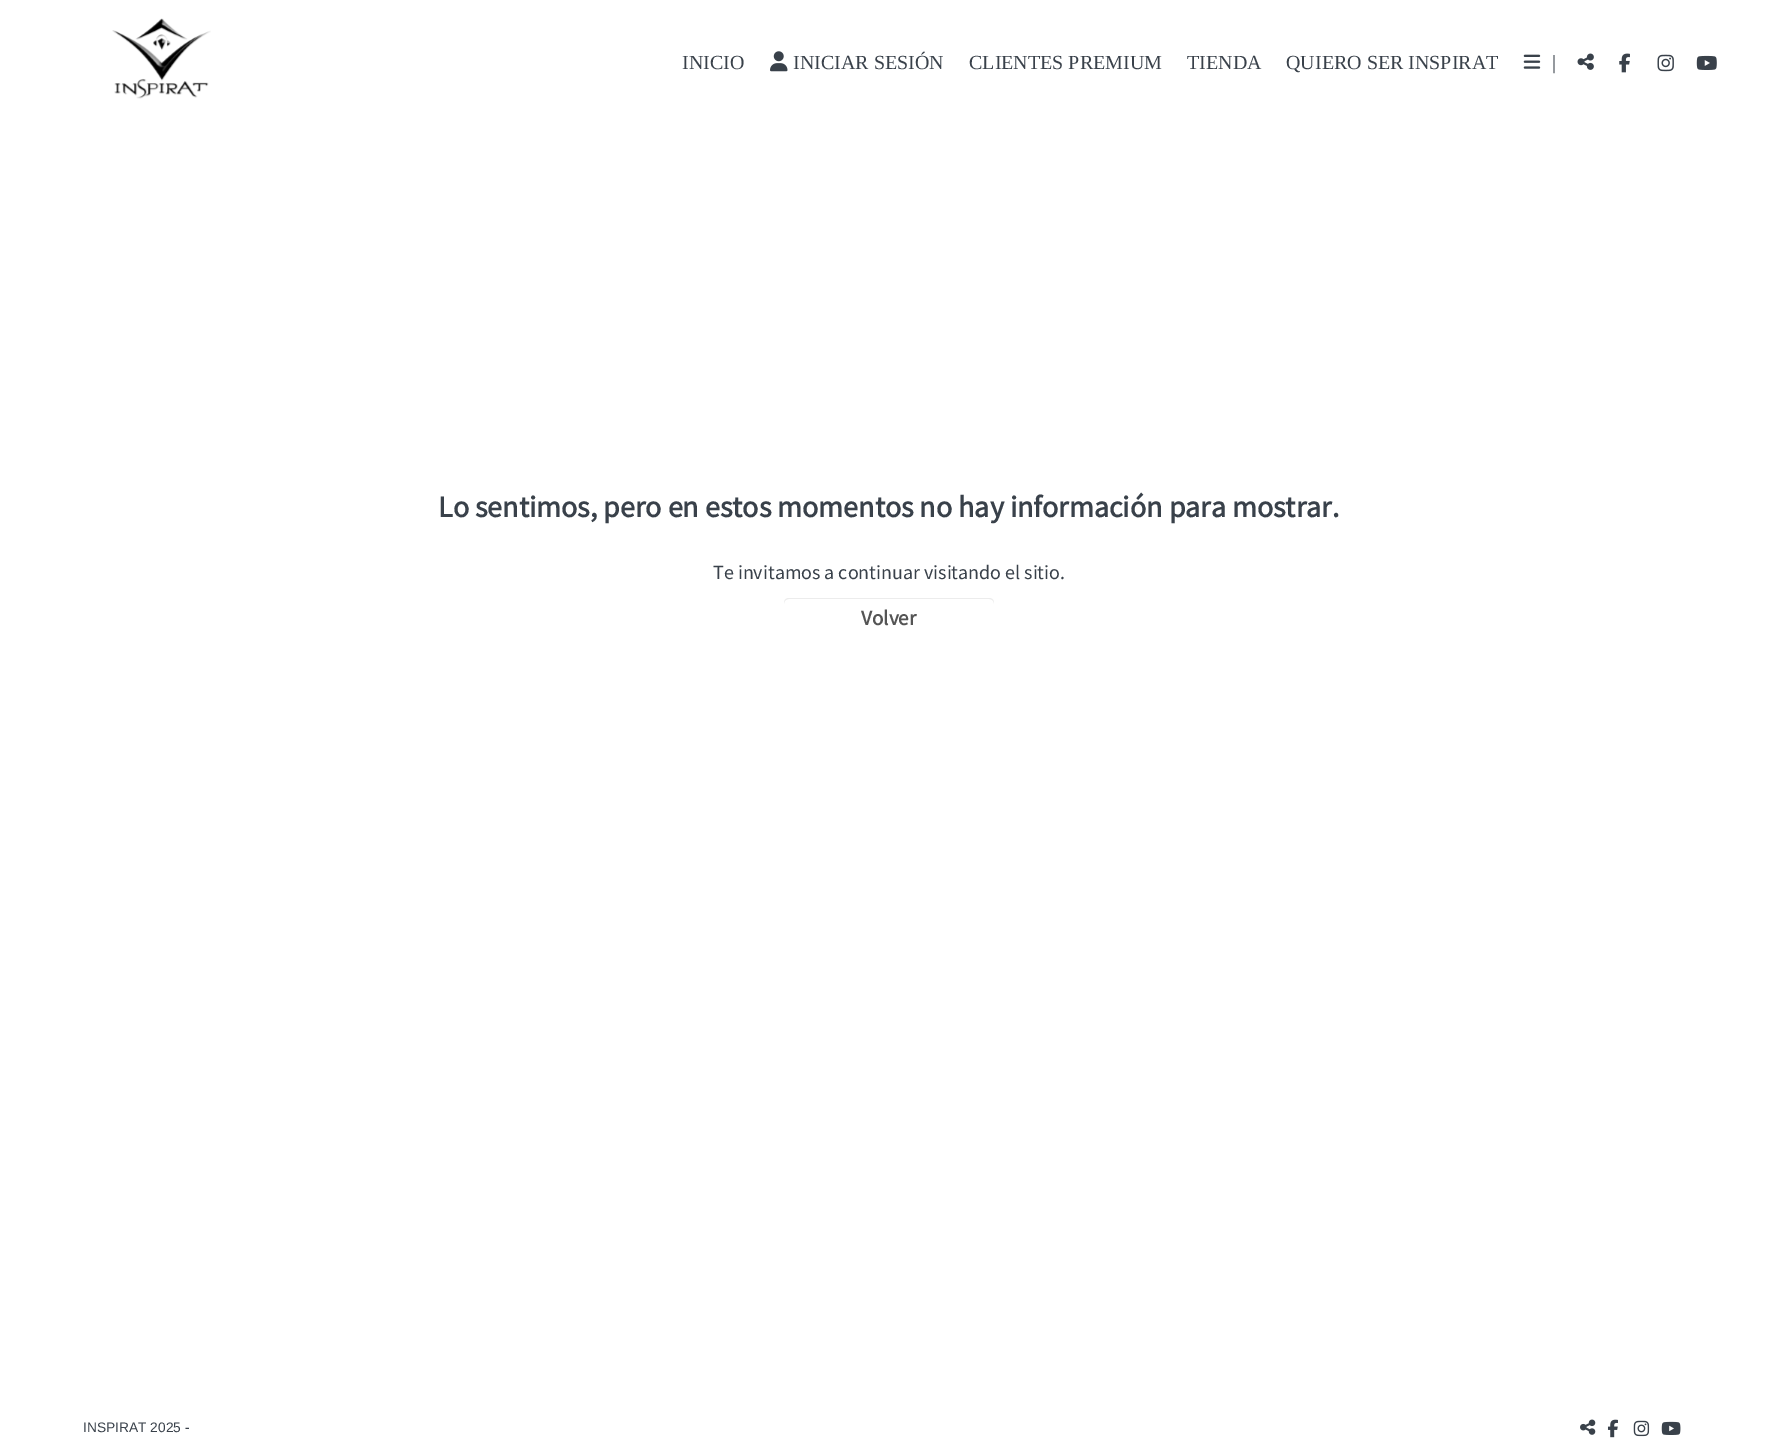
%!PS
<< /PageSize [1777 1455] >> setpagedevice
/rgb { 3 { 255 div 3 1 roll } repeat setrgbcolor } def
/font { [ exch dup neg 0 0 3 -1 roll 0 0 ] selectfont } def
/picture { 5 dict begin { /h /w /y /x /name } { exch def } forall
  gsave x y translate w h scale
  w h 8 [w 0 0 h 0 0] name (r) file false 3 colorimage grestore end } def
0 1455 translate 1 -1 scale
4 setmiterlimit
255 255 255 rgb
0 0 1777 1455 rectfill
(img/1.rgb) 112 18 99 81 picture
(img/2.rgb) 770 51 18 21 picture
(img/3.rgb) 1523 54 18 15 picture
(img/4.rgb) 1577 53 17 17 picture
(img/5.rgb) 1619 53 11 20 picture
(img/6.rgb) 1657 54 17 18 picture
(img/7.rgb) 1696 55 21 15 picture
236 236 236 rgb
789 599 moveto 989 599 lineto 992 599 994 601 994 604 curveto 994 603 lineto 994 600 992 598 989 598 curveto 789 598 lineto 786 598 784 600 784 603 curveto 784 604 lineto 784 601 786 599 789 599 curveto closepath fill
(img/8.rgb) 1580 1419 16 16 picture
(img/9.rgb) 1607 1419 11 19 picture
(img/10.rgb) 1633 1420 17 17 picture
(img/11.rgb) 1661 1421 20 14 picture
/LiberationSerif-Regular 20 font
57 65 74 rgb
[
  [(INICIO) 682 69]
  [(INICIAR SESIÓN) 793 69]
  [(CLIENTES PREMIUM) 969 69]
  [(TIENDA) 1187 69]
  [(QUIERO SER INSPIRAT) 1286 69]
  [(|) 1552 69]
] { aload pop moveto show } forall
/SourceSansPro-Bold 30 font
438 517 moveto (Lo sentimos, pero en estos momentos no hay información para mostrar.) show
/SourceSansPro-Regular 20 font
713 579 moveto (Te invitamos a continuar visitando el sitio.) show
/SourceSansPro-Bold 21 font
85 85 85 rgb
861 625 moveto (Volver) show
/LiberationSans-Regular 13.75 font
57 65 74 rgb
83 1432 moveto (INSPIRAT 2025 -) show
showpage
